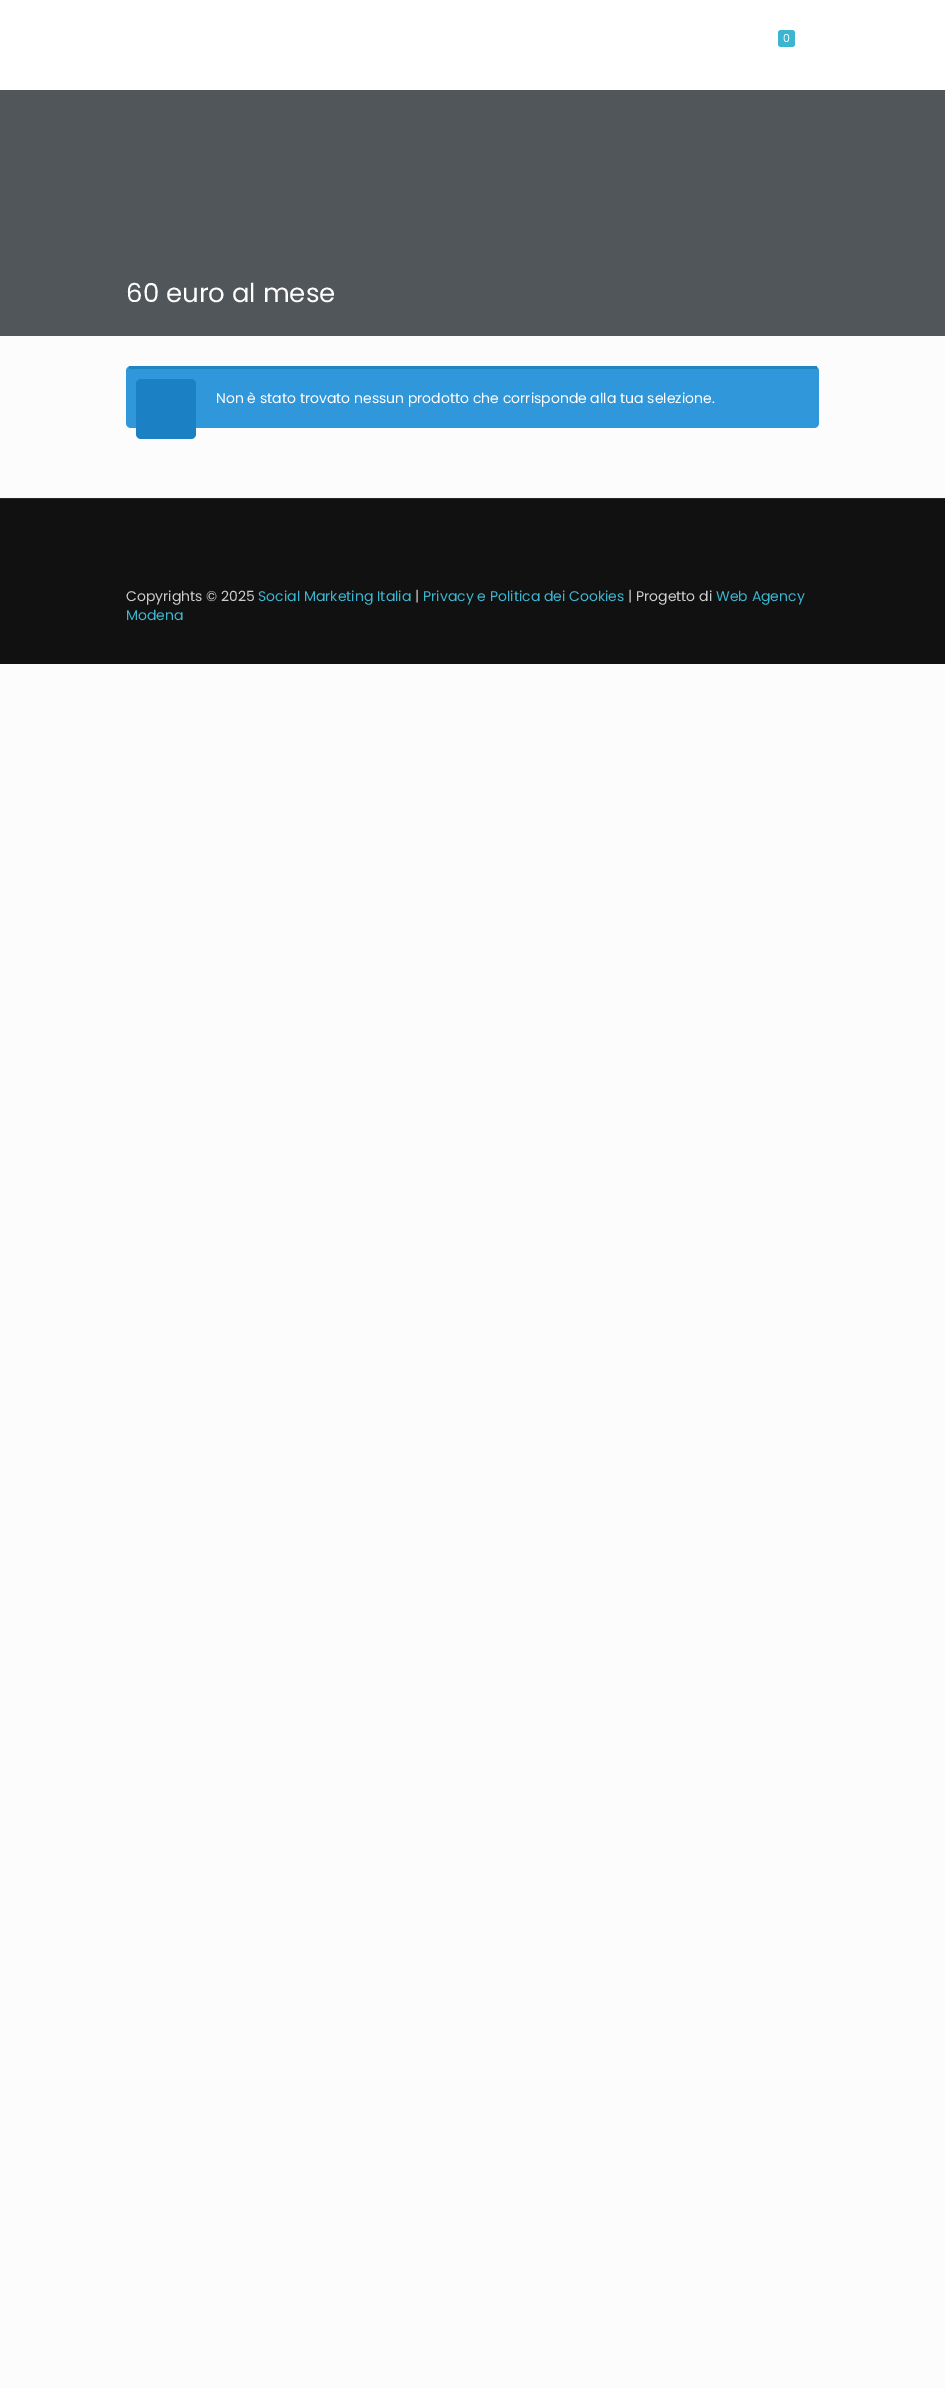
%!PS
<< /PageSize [945 2388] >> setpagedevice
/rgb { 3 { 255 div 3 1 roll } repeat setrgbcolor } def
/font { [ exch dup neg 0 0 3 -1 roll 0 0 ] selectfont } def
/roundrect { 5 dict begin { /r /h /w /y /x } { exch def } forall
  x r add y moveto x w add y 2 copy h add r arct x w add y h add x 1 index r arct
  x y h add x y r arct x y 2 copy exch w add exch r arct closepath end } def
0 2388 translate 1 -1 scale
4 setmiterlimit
252 252 252 rgb
0 0 945 2388 rectfill
81 86 90 rgb
0 90 945 246 rectfill
255 255 255 rgb
0 0 945 90 rectfill
60 181 208 rgb
778 30 17 17 3 roundrect fill
48 151 219 rgb
126 366 693 62 5 roundrect fill
30 133 190 rgb
129 366 688 3 rectfill
28 129 196 rgb
136 379 60 60 5 roundrect fill
17 17 17 rgb
0 499 945 165 rectfill
41 41 41 rgb
0 498 945 1 rectfill
/Poppins-Regular 11 font
255 255 255 rgb
783 42 moveto (0) show
/Poppins-Regular 26 font
126 302 moveto (60 euro al mese) show
/Poppins-Regular 14 font
216 403 moveto (Non è stato trovato nessun prodotto che corrisponde alla tua selezione.) show
204 204 204 rgb
126 601 moveto (Copyrights © 2025) show
60 181 208 rgb
258 601 moveto (Social Marketing Italia) show
204 204 204 rgb
415 601 moveto (|) show
60 181 208 rgb
423 601 moveto (Privacy e Politica dei Cookies) show
204 204 204 rgb
628 601 moveto (| Progetto di) show
60 181 208 rgb
716 601 moveto (Web Agency) show
126 620 moveto (Modena) show
showpage
